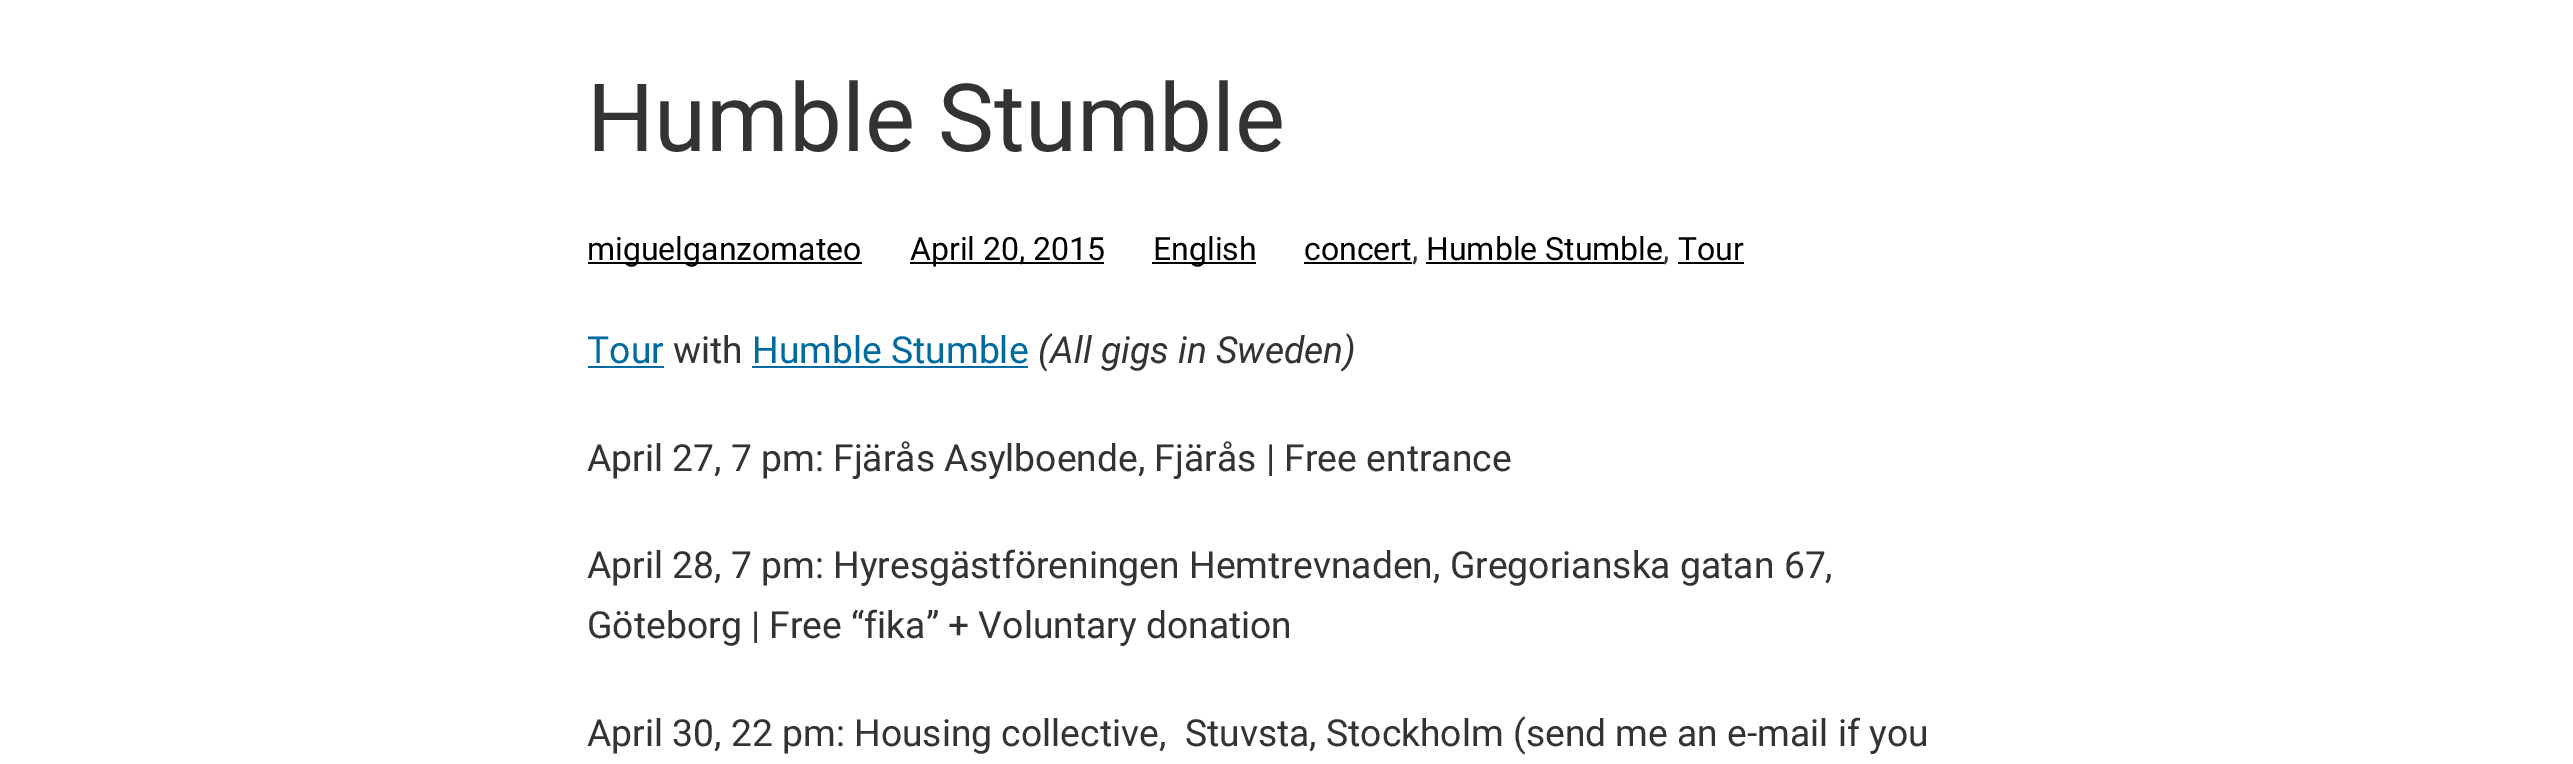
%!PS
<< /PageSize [2573 764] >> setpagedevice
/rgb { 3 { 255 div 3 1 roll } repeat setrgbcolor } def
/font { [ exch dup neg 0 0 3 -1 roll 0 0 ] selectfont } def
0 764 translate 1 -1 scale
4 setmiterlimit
255 255 255 rgb
0 0 2573 764 rectfill
[
  [588 262 274 2 0 0 0]
  [910 262 194 2 0 0 0]
  [1152 262 104 2 0 0 0]
  [1304 262 108 2 0 0 0]
  [1426 262 238 2 0 0 0]
  [1678 262 66 2 0 0 0]
  [588 366 76 2 0 107 161]
  [752 366 276 2 0 107 161]
] { aload pop rgb rectfill } forall
/Roboto-Regular 94.25 font
51 51 51 rgb
587 151 moveto (Humble Stumble) show
/Roboto-Regular 32 font
0 0 0 rgb
[
  [(miguelganzomateo) 587 260]
  [(April 20, 2015) 910 260]
  [(English) 1153 260]
  [(concert) 1304 260]
] { aload pop moveto show } forall
51 51 51 rgb
1412 260 moveto (,) show
0 0 0 rgb
1426 260 moveto (Humble Stumble) show
51 51 51 rgb
1663 260 moveto (,) show
0 0 0 rgb
1678 260 moveto (Tour) show
/Roboto-Regular 37.3 font
0 107 161 rgb
587 363 moveto (Tour) show
51 51 51 rgb
673 363 moveto (with) show
0 107 161 rgb
752 363 moveto (Humble Stumble) show
/Roboto-Italic 37.3 font
51 51 51 rgb
1038 363 moveto (\(All gigs in Sweden\)) show
/Roboto-Regular 37.3 font
[
  [(April 27, 7 pm: Fjärås Asylboende, Fjärås | Free entrance) 587 471]
  [(April 28, 7 pm: Hyresgästföreningen Hemtrevnaden, Gregorianska gatan 67,) 587 578]
  [(Göteborg | Free “fika” + Voluntary donation) 587 638]
  [(April 30, 22 pm: Housing collective,  Stuvsta, Stockholm \(send me an e-mail if you) 587 746]
] { aload pop moveto show } forall
showpage
